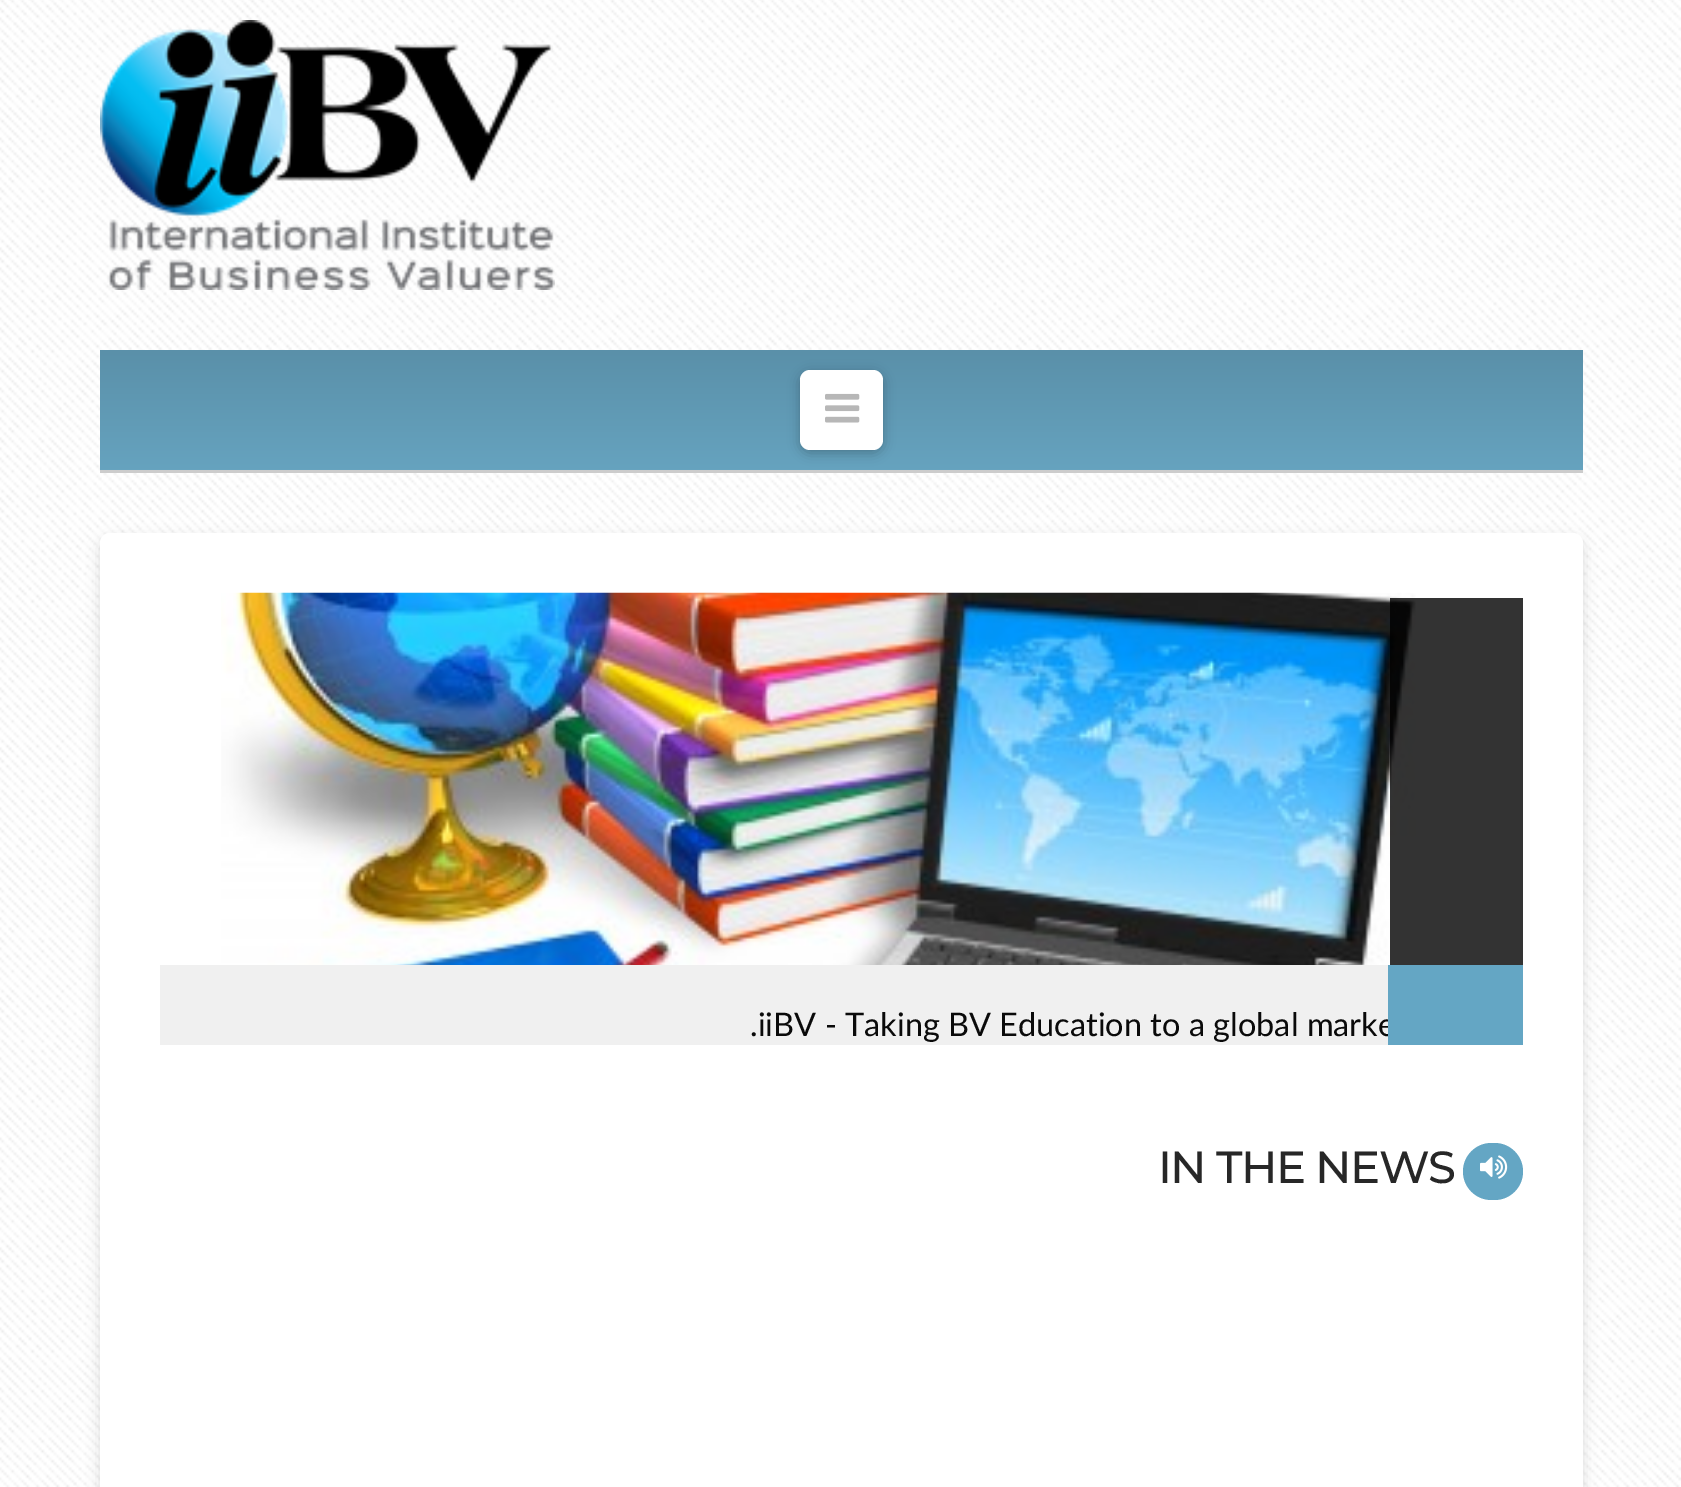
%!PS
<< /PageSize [1681 1487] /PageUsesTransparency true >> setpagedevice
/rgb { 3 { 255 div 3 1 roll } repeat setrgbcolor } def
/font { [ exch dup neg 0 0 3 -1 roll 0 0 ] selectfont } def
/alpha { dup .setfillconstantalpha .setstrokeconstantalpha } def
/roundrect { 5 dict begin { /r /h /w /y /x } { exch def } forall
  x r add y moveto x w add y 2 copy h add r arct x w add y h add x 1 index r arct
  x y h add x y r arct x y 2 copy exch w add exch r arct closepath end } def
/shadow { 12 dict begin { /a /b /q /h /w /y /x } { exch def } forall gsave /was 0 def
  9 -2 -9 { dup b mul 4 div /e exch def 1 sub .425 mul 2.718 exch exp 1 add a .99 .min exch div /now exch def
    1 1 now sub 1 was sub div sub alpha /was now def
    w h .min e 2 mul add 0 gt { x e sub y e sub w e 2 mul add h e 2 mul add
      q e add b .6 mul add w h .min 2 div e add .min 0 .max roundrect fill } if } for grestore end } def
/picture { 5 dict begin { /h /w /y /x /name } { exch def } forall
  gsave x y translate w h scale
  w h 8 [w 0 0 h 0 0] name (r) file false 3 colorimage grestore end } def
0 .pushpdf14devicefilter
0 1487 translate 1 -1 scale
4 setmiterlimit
255 255 255 rgb
0 0 1681 1487 rectfill
(img/1.rgb) 0 0 1681 1487 picture
(img/2.rgb) 100 20 455 270 picture
gsave 100 350 moveto 1583 350 lineto 1583 470 lineto 100 470 lineto closepath clip newpath
<< /ShadingType 2 /ColorSpace /DeviceRGB /Coords [841 350 841 470] /Extend [true true] /Function << /FunctionType 2 /Domain [0 1] /C0 [0.353 0.565 0.663] /C1 [0.4 0.639 0.749] /N 1 >> >> shfill grestore
204 204 204 rgb
100 470 1483 3 rectfill
0 0 0 rgb
800 373 83 80 10 6 0.25 shadow
255 255 255 rgb
800 370 83 80 10 roundrect fill
(img/3.rgb) 825 393 35 30 picture
0 0 0 rgb
100 538 1483 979 10 6.5 0.13 shadow
255 255 255 rgb
100 533 1483 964 10 roundrect fill
(img/4.rgb) 221 592 1195 373 picture
0.8 alpha
0 0 0 rgb
1390 598 133 367 rectfill
1 alpha
240 240 240 rgb
160 965 1228 80 rectfill
100 166 196 rgb
1463 1143 60 57 28.5 roundrect fill
(img/5.rgb) 1480 1155 28 24 picture
/Lato-Regular 32.5 font
10 10 10 rgb
750 1036 moveto (.iiBV - Taking BV Education to a global marke) show
100 166 196 rgb
1388 965 135 80 rectfill
/Montserrat-Medium 45 font
39 39 39 rgb
1158 1183 moveto -1.5 0 (IN THE NEWS) ashow
.poppdf14devicefilter showpage
